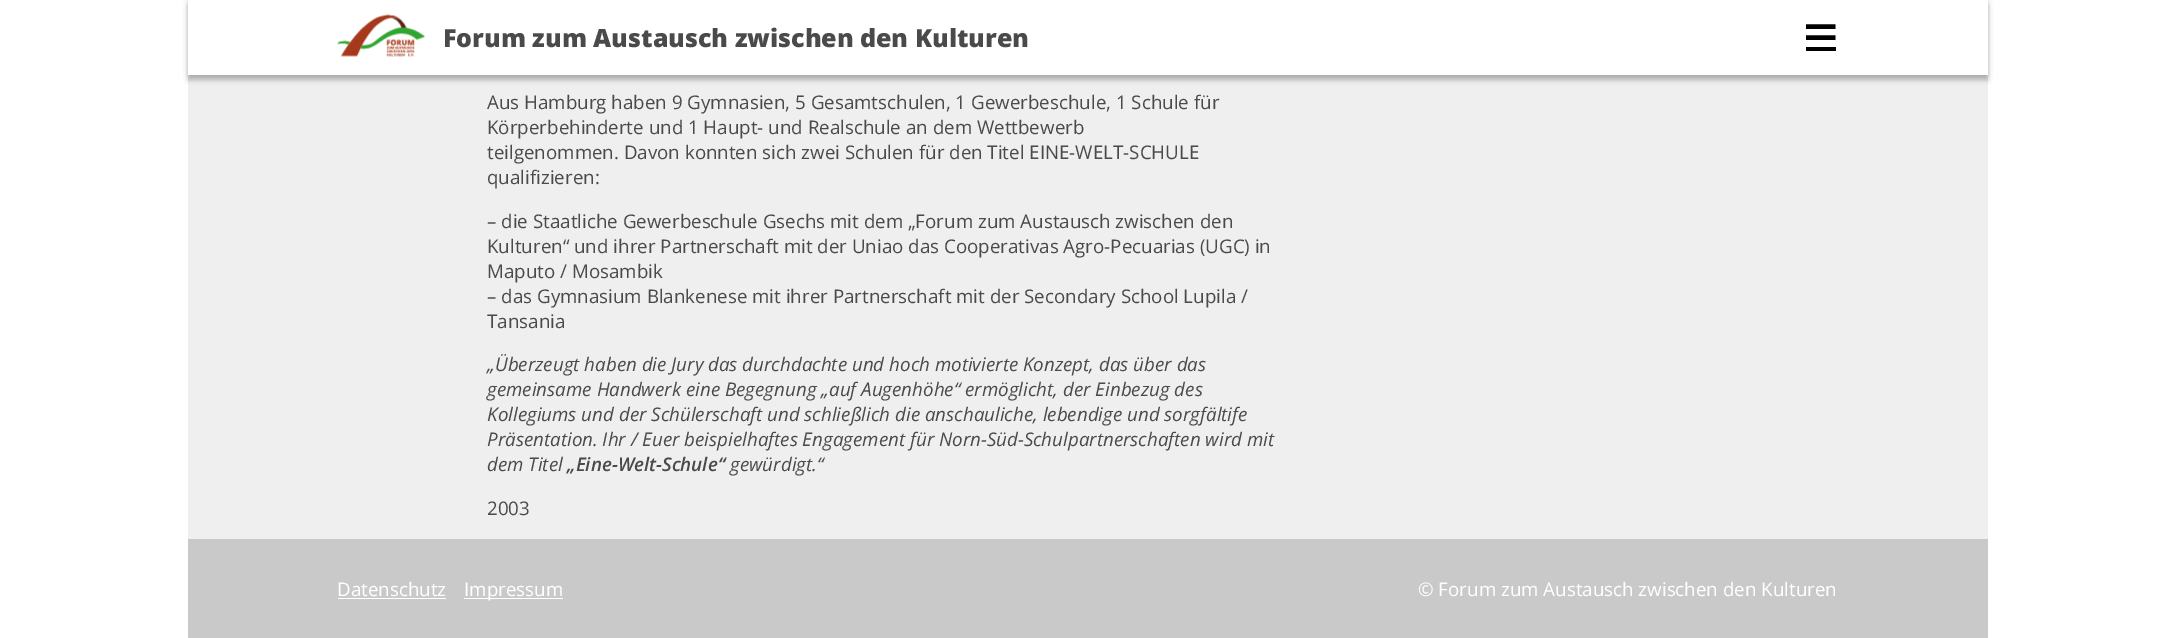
%!PS
<< /PageSize [2173 638] /PageUsesTransparency true >> setpagedevice
/rgb { 3 { 255 div 3 1 roll } repeat setrgbcolor } def
/font { [ exch dup neg 0 0 3 -1 roll 0 0 ] selectfont } def
/alpha { dup .setfillconstantalpha .setstrokeconstantalpha } def
/roundrect { 5 dict begin { /r /h /w /y /x } { exch def } forall
  x r add y moveto x w add y 2 copy h add r arct x w add y h add x 1 index r arct
  x y h add x y r arct x y 2 copy exch w add exch r arct closepath end } def
/shadow { 12 dict begin { /a /b /q /h /w /y /x } { exch def } forall gsave /was 0 def
  9 -2 -9 { dup b mul 4 div /e exch def 1 sub .425 mul 2.718 exch exp 1 add a .99 .min exch div /now exch def
    1 1 now sub 1 was sub div sub alpha /was now def
    w h .min e 2 mul add 0 gt { x e sub y e sub w e 2 mul add h e 2 mul add
      q e add b .6 mul add w h .min 2 div e add .min 0 .max roundrect fill } if } for grestore end } def
/picture { 5 dict begin { /h /w /y /x /name } { exch def } forall
  gsave x y translate w h scale
  w h 8 [w 0 0 h 0 0] name (r) file false 3 colorimage grestore end } def
0 .pushpdf14devicefilter
0 638 translate 1 -1 scale
4 setmiterlimit
255 255 255 rgb
0 0 2173 638 rectfill
239 239 239 rgb
188 75 1800 464 rectfill
0 0 0 rgb
188 5 1800 75 0 2.5 0.24 shadow
188 0 1800 75 0 2.5 0.12 shadow
255 255 255 rgb
188 0 1800 75 rectfill
(img/1.rgb) 337 14 89 43 picture
0 0 0 rgb
4.4 setlinewidth
1806 26.5 moveto 1835.5 26.5 lineto 1806 37.5 moveto 1835.5 37.5 lineto stroke
[
  [1806 47 30 4 0 0 0]
  [188 539 1800 99 202 201 201]
  [338 598 108 1 255 255 255]
  [464 598 99 1 255 255 255]
] { aload pop rgb rectfill } forall
/OpenSans-ExtraBold 25 font
74 74 74 rgb
443 47 moveto (Forum zum Austausch zwischen den Kulturen) show
/OpenSans-Regular 18.75 font
[
  [(Aus Hamburg haben 9 Gymnasien, 5 Gesamtschulen, 1 Gewerbeschule, 1 Schule für) 487 109]
  [(Körperbehinderte und 1 Haupt- und Realschule an dem Wettbewerb) 487 134]
  [(teilgenommen. Davon konnten sich zwei Schulen für den Titel EINE-WELT-SCHULE) 487 159]
  [(qualifizieren:) 487 184]
  [(– die Staatliche Gewerbeschule Gsechs mit dem „Forum zum Austausch zwischen den) 487 228]
  [(Kulturen“ und ihrer Partnerschaft mit der Uniao das Cooperativas Agro-Pecuarias \(UGC\) in) 487 253]
  [(Maputo / Mosambik) 487 278]
  [(– das Gymnasium Blankenese mit ihrer Partnerschaft mit der Secondary School Lupila /) 487 303]
  [(Tansania) 487 328]
] { aload pop moveto show } forall
/OpenSans-Italic 18.75 font
[
  [(„Überzeugt haben die Jury das durchdachte und hoch motivierte Konzept, das über das) 487 371]
  [(gemeinsame Handwerk eine Begegnung „auf Augenhöhe“ ermöglicht, der Einbezug des) 487 396]
  [(Kollegiums und der Schülerschaft und schließlich die anschauliche, lebendige und sorgfältife) 487 421]
  [(Präsentation. Ihr / Euer beispielhaftes Engagement für Norn-Süd-Schulpartnerschaften wird mit) 487 446]
  [(dem Titel) 487 471]
] { aload pop moveto show } forall
/OpenSans-SemiBoldItalic 18.75 font
567 471 moveto („Eine-Welt-Schule“) show
/OpenSans-Italic 18.75 font
730 471 moveto (gewürdigt.“) show
/OpenSans-Regular 18.75 font
487 515 moveto (2003) show
255 255 255 rgb
[
  [(Datenschutz) 337 596]
  [(Impressum) 464 596]
  [(© Forum zum Austausch zwischen den Kulturen) 1418 596]
] { aload pop moveto show } forall
.poppdf14devicefilter showpage
